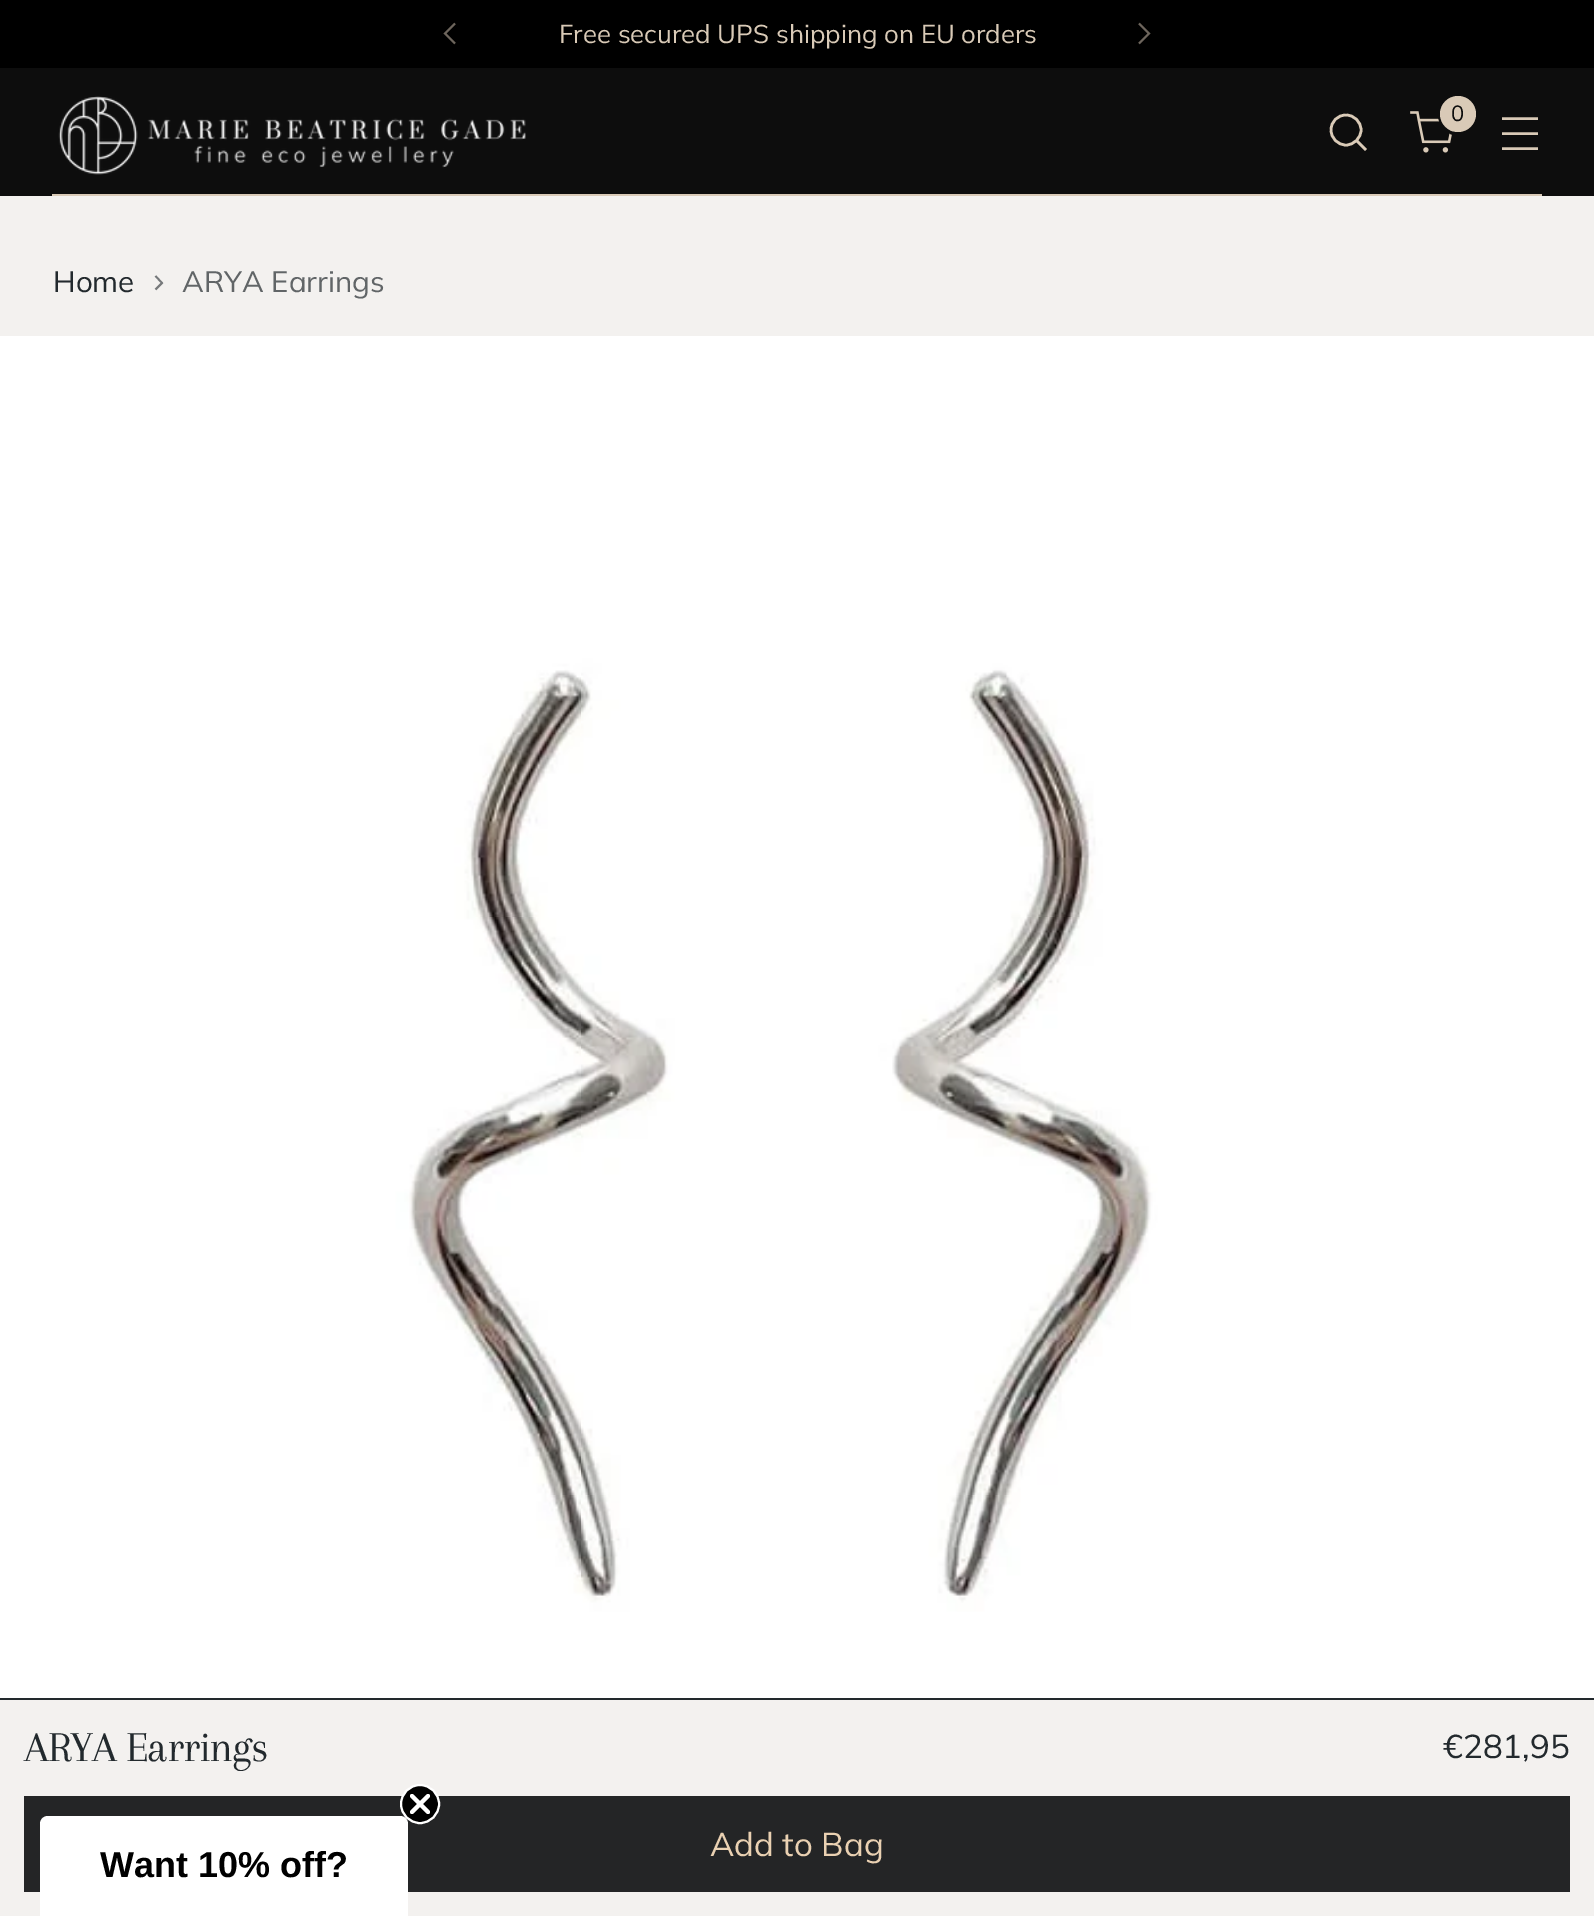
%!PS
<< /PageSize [1594 1916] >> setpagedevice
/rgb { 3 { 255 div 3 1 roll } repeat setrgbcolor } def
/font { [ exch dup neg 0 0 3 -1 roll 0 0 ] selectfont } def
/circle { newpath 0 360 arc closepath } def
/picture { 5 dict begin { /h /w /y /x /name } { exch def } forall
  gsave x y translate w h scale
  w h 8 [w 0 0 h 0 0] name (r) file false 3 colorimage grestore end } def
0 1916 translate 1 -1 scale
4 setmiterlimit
243 241 239 rgb
0 0 1594 1916 rectfill
0 0 0 rgb
0 0 1594 68 rectfill
109 101 92 rgb
2 setlinewidth
455 23.5 moveto 445 33.5 lineto 455 43.5 lineto stroke
1139 43.5 moveto 1149 33.5 lineto 1139 23.5 lineto stroke
13 13 13 rgb
0 68 1594 128 rectfill
217 202 183 rgb
52 194 1490 2 rectfill
(img/1.rgb) 58 96 468 79 picture
2.6 setlinewidth
1 setlinecap
1346 145 moveto 1354 145 1361 138 1361 130 curveto 1361 121.5 1354 115 1346 115 curveto 1337.5 115 1331 121.5 1331 130 curveto 1331 138 1337.5 145 1346 145 curveto closepath stroke
0 setlinecap
1356.5 140.5 moveto 1366 150 lineto stroke
(img/2.rgb) 1410 111 43 42 picture
13 13 13 rgb
3 setlinewidth
1459 115 19.5 circle stroke
217 202 183 rgb
1458 114 18 circle fill
2.6 setlinewidth
1502 133.5 moveto 1538 133.5 lineto 1502 118.5 moveto 1538 118.5 lineto 1502 148.5 moveto 1538 148.5 lineto stroke
118 121 123 rgb
1.8 setlinewidth
155.5 289.5 moveto 162 283 lineto 155.5 276 lineto stroke
(img/3.rgb) 0 336 1594 1362 picture
34 41 45 rgb
0 1698 1594 2 rectfill
gsave
24 1796 1546 96 rectclip
36 37 38 rgb
-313 1796 moveto 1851 1796 lineto 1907 1892 lineto -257 1892 lineto closepath fill
grestore
255 255 255 rgb
48 1816 moveto 400 1816 lineto 404.5 1816 408 1819.5 408 1824 curveto 408 1916 lineto 40 1916 lineto 40 1824 lineto 40 1819.5 43.5 1816 48 1816 curveto closepath fill
0 0 0 rgb
420 1804 19 circle gsave fill grestore
255 255 255 rgb
2 setlinewidth
stroke
4 setlinewidth
1 setlinecap
1 setlinejoin
412 1796 moveto 428 1812 lineto 412 1812 moveto 428 1796 lineto closepath stroke
/Muli-Regular 25.75 font
217 202 183 rgb
559 43 moveto (Free secured UPS shipping on EU orders) show
/Muli-Regular 22 font
13 13 13 rgb
1451 121 moveto (0) show
/Muli-Regular 29.5 font
34 41 45 rgb
53 292 moveto (Home) show
97 101 103 rgb
182 292 moveto (ARYA Earrings) show
/Arapey-Regular 44 font
34 41 45 rgb
24 1761 moveto -1.1 0 (ARYA Earrings) ashow
/Muli-Regular 33 font
1443 1758 moveto (€281,95) show
234 209 178 rgb
710 1856 moveto (Add to Bag) show
/LiberationSans-Bold 36 font
0 0 0 rgb
100 1877 moveto (Want 10% off?) show
showpage
